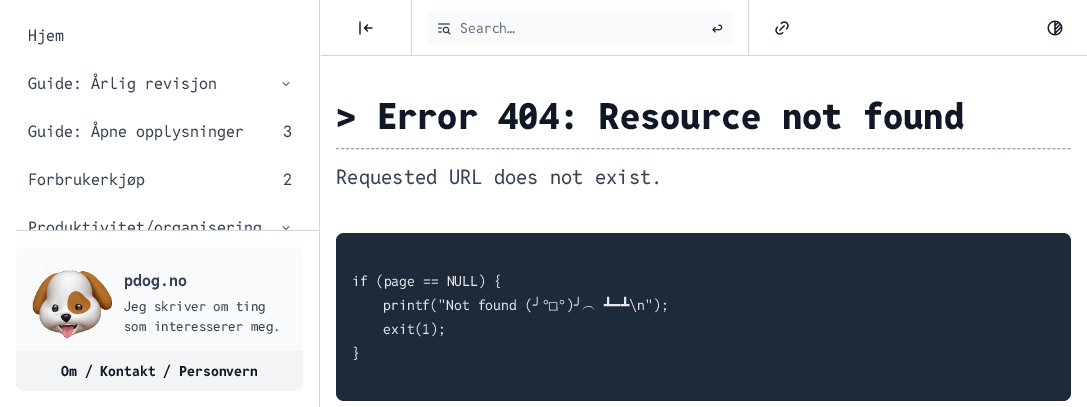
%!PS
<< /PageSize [1087 407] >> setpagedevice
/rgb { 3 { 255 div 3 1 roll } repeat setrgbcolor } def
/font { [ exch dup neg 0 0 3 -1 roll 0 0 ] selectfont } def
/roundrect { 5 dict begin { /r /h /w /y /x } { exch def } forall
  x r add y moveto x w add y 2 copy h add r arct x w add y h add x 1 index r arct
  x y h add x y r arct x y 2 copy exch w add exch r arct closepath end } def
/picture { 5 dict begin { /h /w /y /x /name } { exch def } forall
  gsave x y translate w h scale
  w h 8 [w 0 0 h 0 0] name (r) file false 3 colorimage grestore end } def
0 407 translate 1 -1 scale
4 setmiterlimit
255 255 255 rgb
0 0 1087 407 rectfill
209 213 220 rgb
319 0 1 407 rectfill
(img/1.rgb) 282 82 8 4 picture
(img/1.rgb) 282 226 8 4 picture
16 230 303 1 rectfill
249 250 251 rgb
24 247 moveto 295 247 lineto 299.5 247 303 250.5 303 255 curveto 303 351 lineto 16 351 lineto 16 255 lineto 16 250.5 19.5 247 24 247 curveto closepath fill
(img/2.rgb) 32 268 80 71 picture
243 244 246 rgb
16.5 351.5 moveto 302.5 351.5 lineto 302.5 383 lineto 302.5 387 299 390.5 295 390.5 curveto 24 390.5 lineto 20 390.5 16.5 387 16.5 383 curveto closepath gsave fill grestore
stroke
209 213 220 rgb
321 55 766 1 rectfill
411 0 1 55 rectfill
(img/3.rgb) 359 21 14 14 picture
249 250 251 rgb
428 12 305 32 4 roundrect fill
(img/4.rgb) 438 23 13 12 picture
(img/5.rgb) 712 24 11 9 picture
209 213 220 rgb
748 0 1 55 rectfill
(img/6.rgb) 775 21 14 14 picture
(img/7.rgb) 1047 20 16 16 picture
153 161 175 rgb
[3 2.01] 0 setdash
336 148.5 moveto 1071 148.5 lineto stroke
30 41 57 rgb
336 233 735 168 8 roundrect fill
/RedditMono-Regular 16 font
54 65 83 rgb
[
  [(Hjem) 28 41]
  [(Guide: Årlig revisjon) 28 89]
  [(Guide: Åpne opplysninger) 28 137]
  [(3) 283 137]
  [(Forbrukerkjøp) 28 185]
  [(2) 283 185]
] { aload pop moveto show } forall
gsave
16 16 303 214 rectclip
28 233 moveto (Produktivitet/organisering) show
grestore
/RedditMono-Bold 16 font
124 286 moveto (pdog.no) show
/RedditMono-Regular 13.25 font
124 311 moveto (Jeg skriver om ting) show
124 331 moveto (som interesserer meg.) show
/RedditMono-Bold 14 font
16 24 40 rgb
61 376 moveto (Om / Kontakt / Personvern) show
/RedditMono-Regular 14 font
106 114 130 rgb
460 33 moveto (Search…) show
/RedditMono-ExtraBold 36 font
16 24 40 rgb
336 129 moveto (> Error 404: Resource not found) show
/RedditMono-Regular 20 font
54 65 83 rgb
336 184 moveto (Requested URL does not exist.) show
/RedditMono-Regular 14 font
229 231 235 rgb
352 286 moveto (if \(page == NULL\) {) show
383 310 moveto (printf\("Not found \() show
/DejaVuSansMono-Regular 14 font
533 310 moveto (╯) show
/RedditMono-Regular 14 font
542 310 moveto (°) show
/DejaVuSansMono-Regular 14 font
549 310 moveto (□) show
/RedditMono-Regular 14 font
558 310 moveto (°\)) show
/DejaVuSansMono-Regular 14 font
574 310 moveto (╯) show
/WenQuanYiZenHei-Medium 14 font
582 310 moveto (︵) show
/DejaVuSansMono-Regular 14 font
604 310 moveto (┻━┻) show
/RedditMono-Regular 14 font
[
  [(\\n"\);) 629 310]
  [(exit\(1\);) 383 334]
  [(}) 352 358]
] { aload pop moveto show } forall
showpage
